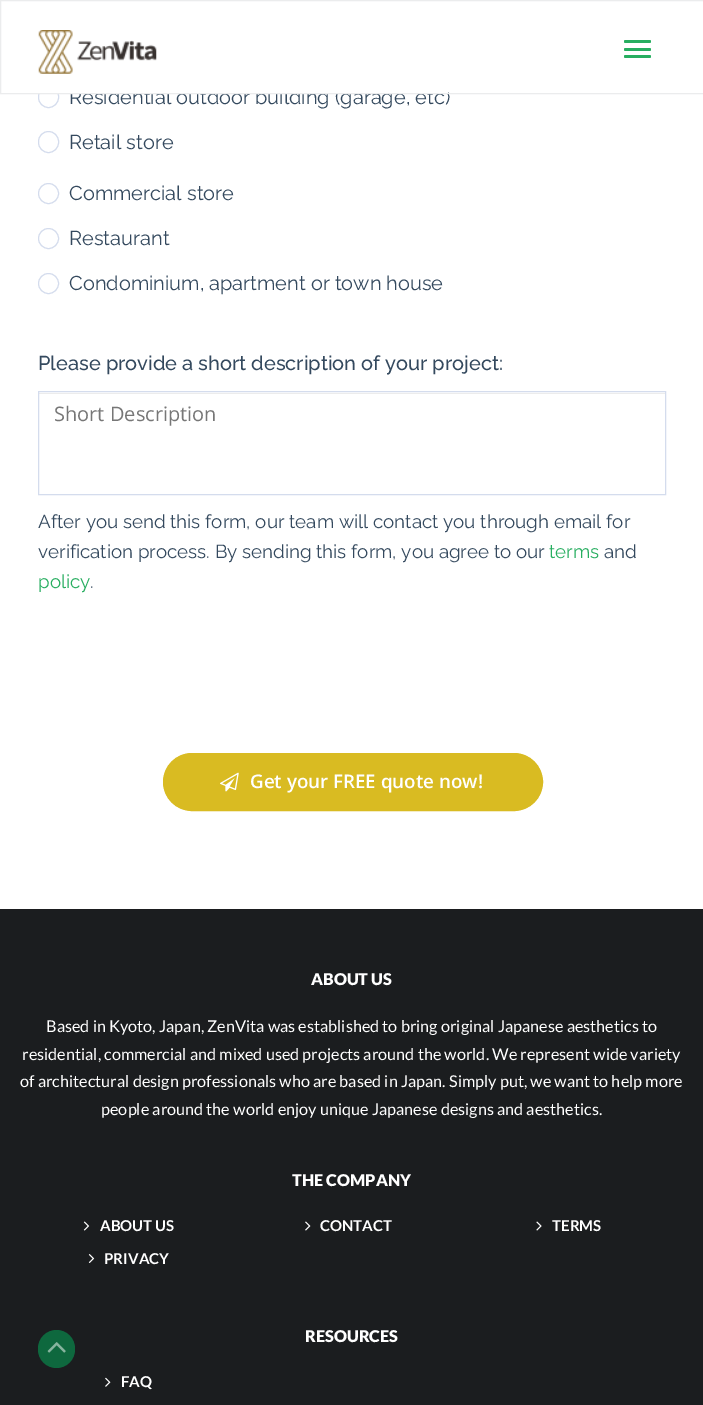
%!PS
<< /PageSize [703 1405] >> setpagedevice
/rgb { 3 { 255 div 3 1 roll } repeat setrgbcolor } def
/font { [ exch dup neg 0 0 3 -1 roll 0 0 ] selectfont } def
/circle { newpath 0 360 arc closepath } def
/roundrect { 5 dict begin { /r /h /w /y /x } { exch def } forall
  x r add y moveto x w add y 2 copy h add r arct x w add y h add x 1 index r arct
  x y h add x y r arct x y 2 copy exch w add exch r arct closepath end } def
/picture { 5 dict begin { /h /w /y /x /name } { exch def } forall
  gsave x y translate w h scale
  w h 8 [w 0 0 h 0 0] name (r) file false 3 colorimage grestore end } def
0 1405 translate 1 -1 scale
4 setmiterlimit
255 255 255 rgb
0 0 703 1405 rectfill
212 220 237 rgb
38.5 86.5 20 21 10 roundrect stroke
38.5 131.5 20 21 10 roundrect stroke
48.5 193.5 10 circle stroke
48.5 238.5 10 circle stroke
48.5 283.5 10 circle stroke
236 236 236 rgb
39 393 626 1 rectfill
212 220 237 rgb
38.5 391.5 627 103 rectstroke
217 187 34 rgb
163.5 753.5 379 57 28.5 roundrect gsave fill grestore
stroke
(img/2.rgb) 220 772 19 20 picture
27 29 31 rgb
0 909 703 496 rectfill
(img/3.rgb) 83 1221 7 10 picture
(img/4.rgb) 305 1221 6 10 picture
(img/5.rgb) 536 1221 6 10 picture
(img/6.rgb) 88 1254 7 9 picture
(img/7.rgb) 105 1377 6 10 picture
14 104 62 rgb
38 1330 37 38 18.5 roundrect fill
(img/8.rgb) 47 1342 19 11 picture
/Raleway-Regular 20 font
52 73 94 rgb
69 104 moveto (Residential outdoor building \(garage, etc\)) show
255 255 255 rgb
38 86 410 7 rectfill
235 236 237 rgb
0.5 0.5 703 93 rectstroke
39 174 96 rgb
624 55 27 3 1.5 roundrect fill
624 48 27 3 1.5 roundrect fill
624 40 27 3 1.5 roundrect fill
(img/1.rgb) 38 30 119 44 picture
52 73 94 rgb
[
  [(Retail store) 69 149]
  [(Commercial store) 69 200]
  [(Restaurant) 69 245]
  [(Condominium, apartment or town house) 69 290]
] { aload pop moveto show } forall
/Raleway-Medium 20 font
38 370 moveto (Please provide a short description of your project:) show
/OpenSans-Regular 20 font
119 119 119 rgb
54 421 moveto (Short Description) show
/Raleway-Regular 18.75 font
52 73 94 rgb
38 528 moveto (After you send this form, our team will contact you through email for) show
38 558 moveto (verification process. By sending this form, you agree to our) show
39 174 96 rgb
549 558 moveto (terms) show
52 73 94 rgb
604 558 moveto (and) show
39 174 96 rgb
38 588 moveto (policy) show
52 73 94 rgb
90 588 moveto (.) show
/OpenSans-SemiBold 18.75 font
255 255 255 rgb
250 788 moveto (Get your FREE quote now!) show
/Lato-Black 16.25 font
311 985 moveto (ABOUT US) show
/Lato-Regular 16.25 font
[
  [(Based in Kyoto, Japan, ZenVita was established to bring original Japanese aesthetics to) 46 1032]
  [(residential, commercial and mixed used projects around the world. We represent wide variety) 22 1060]
  [(of architectural design professionals who are based in Japan. Simply put, we want to help more) 20 1087]
  [(people around the world enjoy unique Japanese designs and aesthetics.) 101 1115]
] { aload pop moveto show } forall
/Lato-Black 16.25 font
292 1186 moveto (THE COMPANY) show
/Lato-Bold 15 font
[
  [(ABOUT US) 100 1231]
  [(CONTACT) 320 1231]
  [(TERMS) 552 1231]
  [(PRIVACY) 104 1264]
] { aload pop moveto show } forall
/Lato-Black 16.25 font
305 1342 moveto (RESOURCES) show
/Lato-Bold 15 font
121 1387 moveto (FAQ) show
showpage
